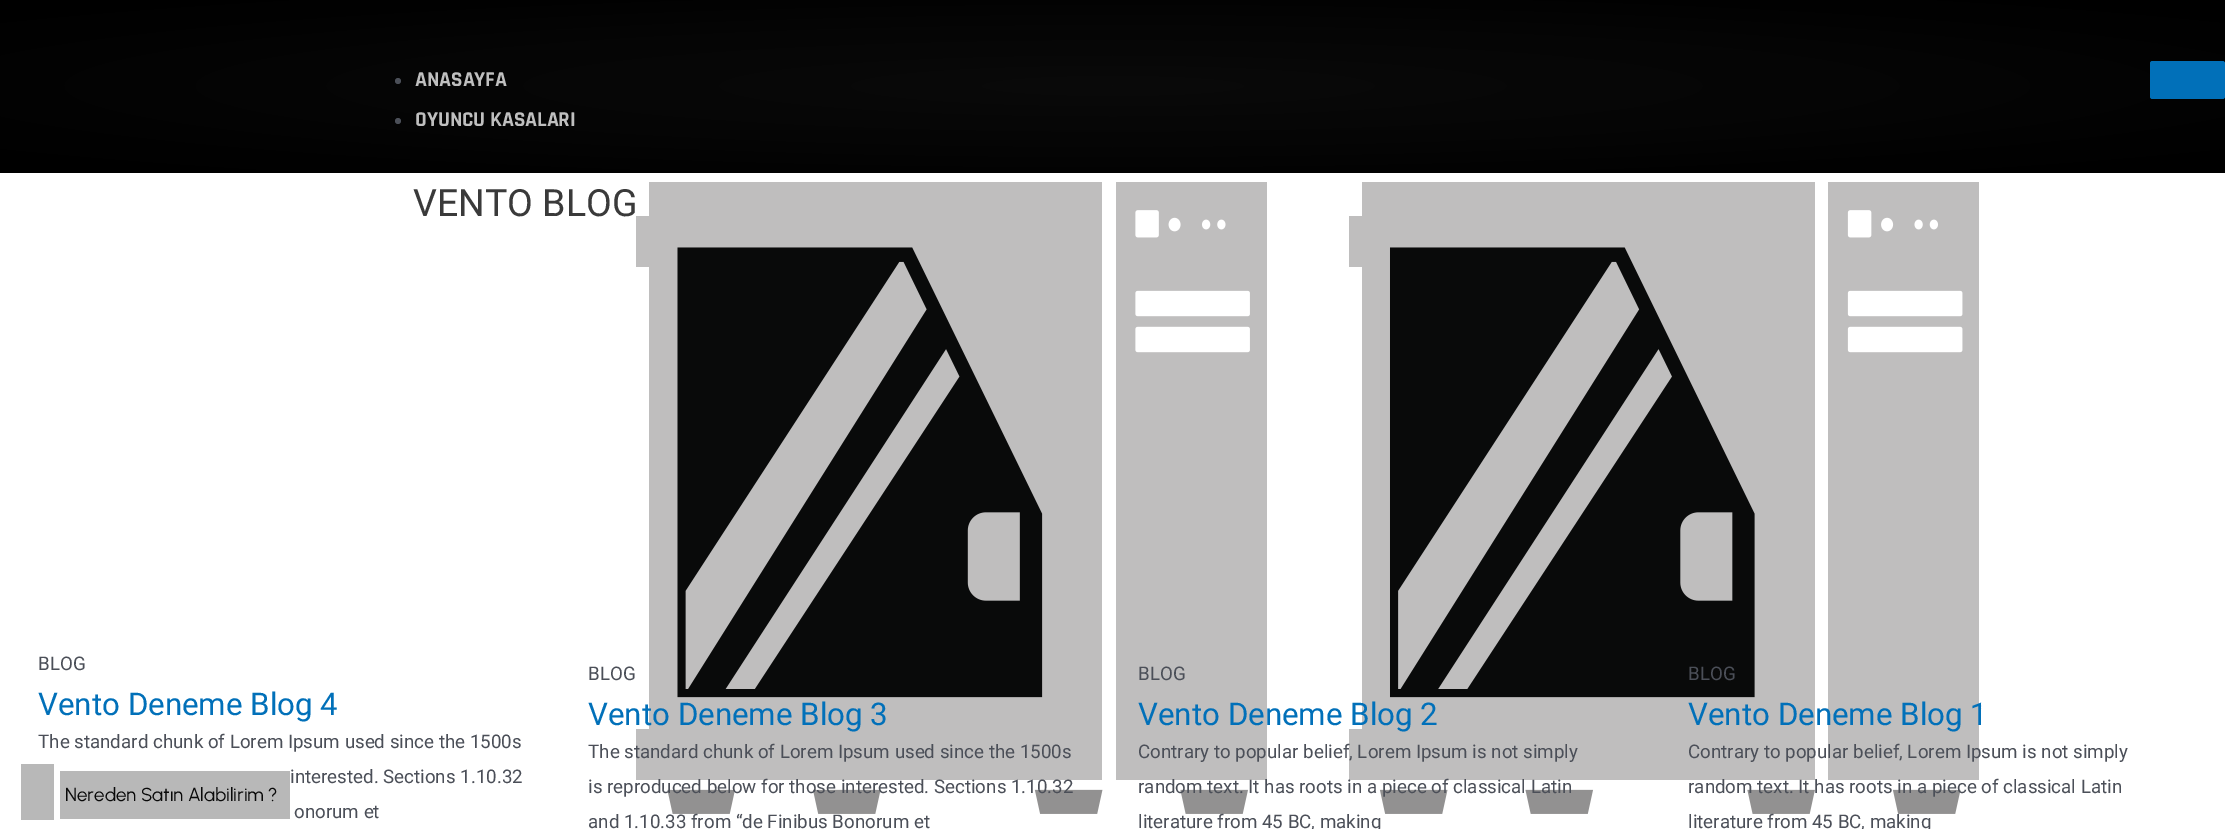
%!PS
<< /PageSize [2225 829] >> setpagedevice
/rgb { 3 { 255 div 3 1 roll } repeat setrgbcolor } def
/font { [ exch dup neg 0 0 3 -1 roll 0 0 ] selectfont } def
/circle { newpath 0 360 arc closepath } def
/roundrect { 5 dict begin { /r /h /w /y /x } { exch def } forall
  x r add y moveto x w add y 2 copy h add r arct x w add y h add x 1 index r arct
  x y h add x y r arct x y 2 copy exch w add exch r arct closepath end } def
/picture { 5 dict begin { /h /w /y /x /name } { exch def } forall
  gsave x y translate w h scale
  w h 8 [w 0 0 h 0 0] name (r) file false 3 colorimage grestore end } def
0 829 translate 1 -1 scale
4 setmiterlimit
255 255 255 rgb
0 0 2225 829 rectfill
gsave 0 0 moveto 2225 0 lineto 2225 173 lineto 0 173 lineto closepath clip newpath 1113 86 translate 1573 122 scale
<< /ShadingType 3 /ColorSpace /DeviceRGB /Coords [0 0 0 0 0 1] /Extend [true true] /Function << /FunctionType 2 /Domain [0 1] /C0 [0.039 0.039 0.039] /C1 [0 0 0] /N 1 >> >> shfill grestore
75 79 88 rgb
398 81 3 circle fill
398 121 3 circle fill
(img/1.rgb) 636 182 631 632 picture
(img/2.rgb) 1349 182 630 632 picture
1 112 185 rgb
2150 61 75 38 2.5 roundrect fill
184 184 184 rgb
21 764 33 56 rectfill
60 771 230 48 rectfill
/Rajdhani-Bold 21.25 font
191 191 191 rgb
415 86 moveto (ANASAYFA) show
415 126 moveto (OYUNCU KASALARI) show
/Roboto-Regular 37.5 font
58 58 58 rgb
413 216 moveto (VENTO BLOG) show
/Roboto-Regular 18.75 font
75 79 88 rgb
38 670 moveto (BLOG) show
/Roboto-Regular 31.25 font
1 112 185 rgb
38 715 moveto (Vento Deneme Blog 4) show
/Roboto-Regular 18.75 font
75 79 88 rgb
[
  [(The standard chunk of Lorem Ipsum used since the 1500s) 38 748]
  [(interested. Sections 1.10.32) 290 783]
  [(onorum et) 294 818]
  [(BLOG) 588 680]
] { aload pop moveto show } forall
/Roboto-Regular 31.25 font
1 112 185 rgb
588 725 moveto (Vento Deneme Blog 3) show
/Roboto-Regular 18.75 font
75 79 88 rgb
[
  [(The standard chunk of Lorem Ipsum used since the 1500s) 588 758]
  [(is reproduced below for those interested. Sections 1.10.32) 588 793]
  [(and 1.10.33 from “de Finibus Bonorum et) 588 828]
  [(BLOG) 1138 680]
] { aload pop moveto show } forall
/Roboto-Regular 31.25 font
1 112 185 rgb
1138 725 moveto (Vento Deneme Blog 2) show
/Roboto-Regular 18.75 font
75 79 88 rgb
[
  [(Contrary to popular belief, Lorem Ipsum is not simply) 1138 758]
  [(random text. It has roots in a piece of classical Latin) 1138 793]
  [(literature from 45 BC, making) 1138 828]
  [(BLOG) 1688 680]
] { aload pop moveto show } forall
/Roboto-Regular 31.25 font
1 112 185 rgb
1688 725 moveto (Vento Deneme Blog 1) show
/Roboto-Regular 18.75 font
75 79 88 rgb
[
  [(Contrary to popular belief, Lorem Ipsum is not simply) 1688 758]
  [(random text. It has roots in a piece of classical Latin) 1688 793]
  [(literature from 45 BC, making) 1688 828]
] { aload pop moveto show } forall
/Urbanist-Regular 18.75 font
9 9 9 rgb
65 801 moveto (Nereden Satın Alabilirim ?) show
showpage
